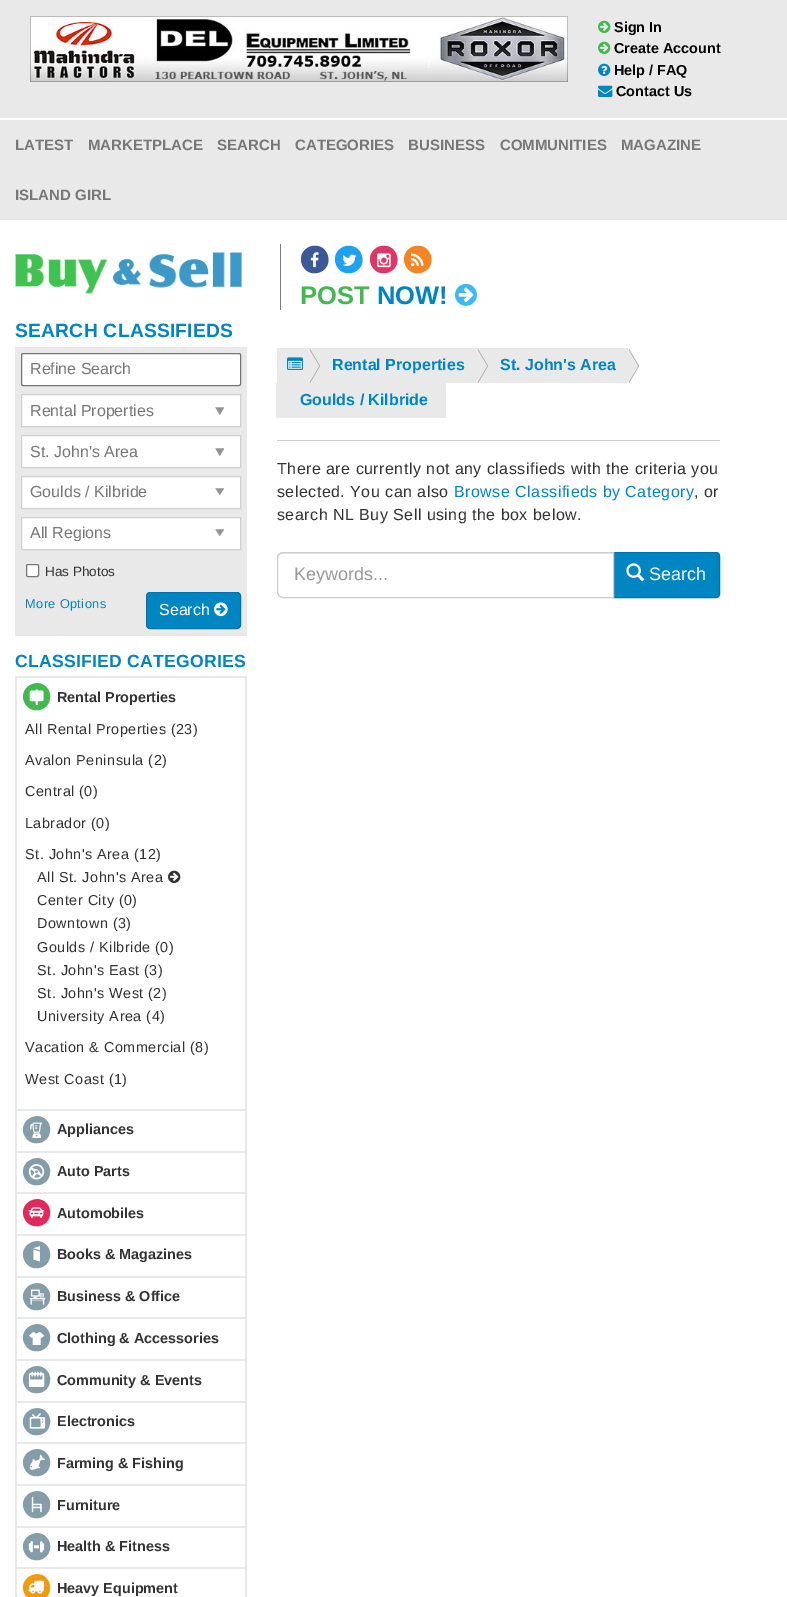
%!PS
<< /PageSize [787 1597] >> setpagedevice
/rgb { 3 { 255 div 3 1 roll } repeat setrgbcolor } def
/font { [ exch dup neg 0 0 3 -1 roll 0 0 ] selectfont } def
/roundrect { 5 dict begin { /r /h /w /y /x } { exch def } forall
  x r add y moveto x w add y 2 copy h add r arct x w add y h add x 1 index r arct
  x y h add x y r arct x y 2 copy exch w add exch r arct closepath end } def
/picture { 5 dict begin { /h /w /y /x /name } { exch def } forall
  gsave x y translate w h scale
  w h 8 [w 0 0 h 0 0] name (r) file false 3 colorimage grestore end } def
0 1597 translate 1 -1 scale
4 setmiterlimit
255 255 255 rgb
0 0 787 1597 rectfill
233 233 233 rgb
0 0 787 220 rectfill
(img/1.rgb) 30 16 538 66 picture
(img/2.rgb) 598 20 13 13 picture
(img/2.rgb) 598 41 13 13 picture
(img/3.rgb) 598 63 13 13 picture
(img/4.rgb) 598 85 15 12 picture
255 255 255 rgb
0 118 787 2 rectfill
(img/5.rgb) 15 251 227 43 picture
124 124 124 rgb
280 244 1 66 rectfill
59 89 152 rgb
326.5 252.5 moveto 328 255 328.5 258 328.5 260.5 curveto 327.5 274 309.5 278 303 266.5 curveto 301.5 264 301 261.5 301 258.5 curveto 302 245 320 241 326.5 252.5 curveto closepath fill
(img/6.rgb) 310 252 9 16 picture
29 161 242 rgb
360.5 252.5 moveto 362 255 362.5 258 362.5 260.5 curveto 361.5 274 343.5 278 337 266.5 curveto 335.5 264 335 261.5 335 258.5 curveto 336 245 354 241 360.5 252.5 curveto closepath fill
(img/7.rgb) 342 254 15 12 picture
224 53 102 rgb
395.5 252.5 moveto 397 255 397.5 258 397.5 260.5 curveto 396.5 274 378.5 278 372 266.5 curveto 370.5 264 370 261.5 370 258.5 curveto 371 245 389 241 395.5 252.5 curveto closepath fill
(img/8.rgb) 377 253 14 15 picture
247 132 34 rgb
429.5 252.5 moveto 431 255 431.5 258 431.5 260.5 curveto 430.5 274 412.5 278 406 266.5 curveto 404.5 264 404 261.5 404 258.5 curveto 405 245 423 241 429.5 252.5 curveto closepath fill
(img/9.rgb) 411 253 13 13 picture
(img/10.rgb) 455 283 22 23 picture
233 233 233 rgb
15 347 232 289 rectfill
255 255 255 rgb
21.5 353.5 219 32 1.5 roundrect gsave fill grestore
118 118 118 rgb
stroke
255 255 255 rgb
21.5 394.5 moveto 240.5 394.5 lineto 240.5 426.5 lineto 21.5 426.5 lineto closepath gsave fill grestore
208 208 208 rgb
stroke
(img/11.rgb) 215 407 9 8 picture
255 255 255 rgb
21.5 435.5 moveto 240.5 435.5 lineto 240.5 467.5 lineto 21.5 467.5 lineto closepath gsave fill grestore
208 208 208 rgb
stroke
(img/11.rgb) 215 448 9 8 picture
255 255 255 rgb
21.5 476.5 moveto 240.5 476.5 lineto 240.5 508.5 lineto 21.5 508.5 lineto closepath gsave fill grestore
208 208 208 rgb
stroke
(img/12.rgb) 215 488 9 7 picture
255 255 255 rgb
21.5 517.5 moveto 240.5 517.5 lineto 240.5 549.5 lineto 21.5 549.5 lineto closepath gsave fill grestore
208 208 208 rgb
stroke
(img/12.rgb) 215 529 9 7 picture
255 255 255 rgb
26.5 564.5 12 12 1.5 roundrect gsave fill grestore
118 118 118 rgb
stroke
0 133 195 rgb
146.5 592.5 94 36 3.5 roundrect gsave fill grestore
0 116 170 rgb
stroke
(img/13.rgb) 214 602 14 15 picture
[
  [15 676 232 2 233 233 233]
  [245 676 2 433 233 233 233]
  [15 676 2 433 233 233 233]
] { aload pop rgb rectfill } forall
66 185 79 rgb
48.5 690 moveto 49.5 692 50.5 695 50 697.5 curveto 49.5 711 31.5 715 25 703.5 curveto 16 688 39.5 674.5 48.5 690 curveto closepath fill
(img/14.rgb) 29 689 15 17 picture
(img/15.rgb) 168 870 13 13 picture
[
  [15 1109 232 2 233 233 233]
  [245 1109 2 42 233 233 233]
  [15 1109 2 42 233 233 233]
] { aload pop rgb rectfill } forall
132 157 168 rgb
48.5 1123 moveto 49.5 1125 50.5 1128 50 1130.5 curveto 49.5 1144 31.5 1148 25 1136.5 curveto 16 1121 39.5 1107.5 48.5 1123 curveto closepath fill
(img/16.rgb) 30 1122 12 16 picture
[
  [15 1151 232 2 233 233 233]
  [245 1151 2 41 233 233 233]
  [15 1151 2 41 233 233 233]
] { aload pop rgb rectfill } forall
132 157 168 rgb
48.5 1165 moveto 49.5 1167 50.5 1170 50 1172.5 curveto 49.5 1186 31.5 1190 25 1178.5 curveto 16 1163 39.5 1149.5 48.5 1165 curveto closepath fill
(img/17.rgb) 28 1164 17 16 picture
[
  [15 1192 232 2 233 233 233]
  [245 1192 2 42 233 233 233]
  [15 1192 2 42 233 233 233]
] { aload pop rgb rectfill } forall
228 40 89 rgb
48.5 1206 moveto 49.5 1208 50.5 1211 50 1213.5 curveto 49.5 1227 31.5 1231 25 1219.5 curveto 16 1204 39.5 1190.5 48.5 1206 curveto closepath fill
(img/18.rgb) 28 1207 17 11 picture
[
  [15 1234 232 2 233 233 233]
  [245 1234 2 42 233 233 233]
  [15 1234 2 42 233 233 233]
] { aload pop rgb rectfill } forall
132 157 168 rgb
48.5 1248 moveto 49.5 1250 50.5 1253 50 1255.5 curveto 49.5 1269 31.5 1273 25 1261.5 curveto 16 1246 39.5 1232.5 48.5 1248 curveto closepath fill
(img/19.rgb) 33 1246 7 16 picture
[
  [15 1276 232 2 233 233 233]
  [245 1276 2 41 233 233 233]
  [15 1276 2 41 233 233 233]
] { aload pop rgb rectfill } forall
132 157 168 rgb
48.5 1290 moveto 49.5 1292 50.5 1295 50 1297.5 curveto 49.5 1311 31.5 1315 25 1303.5 curveto 16 1288 39.5 1274.5 48.5 1290 curveto closepath fill
(img/20.rgb) 29 1289 17 16 picture
[
  [15 1317 232 2 233 233 233]
  [245 1317 2 42 233 233 233]
  [15 1317 2 42 233 233 233]
] { aload pop rgb rectfill } forall
132 157 168 rgb
48.5 1331 moveto 49.5 1333 50.5 1336 50 1338.5 curveto 49.5 1352 31.5 1356 25 1344.5 curveto 16 1329 39.5 1315.5 48.5 1331 curveto closepath fill
(img/21.rgb) 29 1332 16 13 picture
[
  [15 1359 232 2 233 233 233]
  [245 1359 2 42 233 233 233]
  [15 1359 2 42 233 233 233]
] { aload pop rgb rectfill } forall
132 157 168 rgb
48.5 1373 moveto 49.5 1375 50.5 1378 50 1380.5 curveto 49.5 1394 31.5 1398 25 1386.5 curveto 16 1371 39.5 1357.5 48.5 1373 curveto closepath fill
(img/22.rgb) 28 1371 17 16 picture
[
  [15 1401 232 2 233 233 233]
  [245 1401 2 41 233 233 233]
  [15 1401 2 41 233 233 233]
] { aload pop rgb rectfill } forall
132 157 168 rgb
48.5 1415 moveto 49.5 1417 50.5 1420 50 1422.5 curveto 49.5 1436 31.5 1440 25 1428.5 curveto 16 1413 39.5 1399.5 48.5 1415 curveto closepath fill
(img/23.rgb) 29 1413 17 16 picture
[
  [15 1442 232 2 233 233 233]
  [245 1442 2 42 233 233 233]
  [15 1442 2 42 233 233 233]
] { aload pop rgb rectfill } forall
132 157 168 rgb
48.5 1456 moveto 49.5 1458 50.5 1461 50 1463.5 curveto 49.5 1477 31.5 1481 25 1469.5 curveto 16 1454 39.5 1440.5 48.5 1456 curveto closepath fill
(img/24.rgb) 29 1454 16 16 picture
[
  [15 1484 232 2 233 233 233]
  [245 1484 2 42 233 233 233]
  [15 1484 2 42 233 233 233]
] { aload pop rgb rectfill } forall
132 157 168 rgb
48.5 1498 moveto 49.5 1500 50.5 1503 50 1505.5 curveto 49.5 1519 31.5 1523 25 1511.5 curveto 16 1496 39.5 1482.5 48.5 1498 curveto closepath fill
(img/25.rgb) 31 1496 11 17 picture
[
  [15 1526 232 2 233 233 233]
  [245 1526 2 41 233 233 233]
  [15 1526 2 41 233 233 233]
] { aload pop rgb rectfill } forall
132 157 168 rgb
48.5 1540 moveto 49.5 1542 50.5 1545 50 1547.5 curveto 49.5 1561 31.5 1565 25 1553.5 curveto 16 1538 39.5 1524.5 48.5 1540 curveto closepath fill
(img/26.rgb) 28 1541 17 12 picture
[
  [15 1567 232 2 233 233 233]
  [245 1567 2 30 233 233 233]
  [15 1567 2 30 233 233 233]
] { aload pop rgb rectfill } forall
242 154 14 rgb
48.5 1581 moveto 49.5 1583 50.5 1586 50 1588.5 curveto 49.5 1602 31.5 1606 25 1594.5 curveto 16 1579 39.5 1565.5 48.5 1581 curveto closepath fill
(img/27.rgb) 28 1580 16 14 picture
204 204 204 rgb
277 440 443 1 rectfill
233 233 233 rgb
277 348 351 35 rectfill
173 173 173 rgb
310 383 moveto 310 349 lineto 320 366 lineto closepath fill
233 233 233 rgb
309 383 moveto 309 349 lineto 319 366 lineto closepath fill
(img/28.rgb) 287 357 16 13 picture
173 173 173 rgb
478 383 moveto 478 349 lineto 488 366 lineto closepath fill
233 233 233 rgb
477 383 moveto 477 349 lineto 487 366 lineto closepath fill
173 173 173 rgb
629 383 moveto 629 349 lineto 639 366 lineto closepath fill
233 233 233 rgb
628 383 moveto 628 349 lineto 638 366 lineto closepath fill
276 383 170 35 rectfill
0 133 195 rgb
613.5 552.5 moveto 716 552.5 lineto 718 552.5 719.5 554 719.5 556 curveto 719.5 594 lineto 719.5 596 718 597.5 716 597.5 curveto 613.5 597.5 lineto closepath gsave fill grestore
0 116 170 rgb
stroke
255 255 255 rgb
283 552 moveto 614 552 lineto 614 598 lineto 283 598 lineto 279.5 598 277 595.5 277 592 curveto 277 558 lineto 277 554.5 279.5 552 283 552 curveto closepath fill
236 236 236 rgb
283 554 moveto 613 554 lineto 613 553 lineto 283 553 lineto 280 553 278 556 278 559 curveto 278 556 280 554 283 554 curveto closepath fill
204 204 204 rgb
283 552.5 moveto 613.5 552.5 lineto 613.5 597.5 lineto 283 597.5 lineto 280 597.5 277.5 595 277.5 592 curveto 277.5 558 lineto 277.5 555 280 552.5 283 552.5 curveto closepath stroke
(img/29.rgb) 626 563 19 19 picture
/LiberationSans-Bold 14.4 font
0 0 0 rgb
[
  [(Sign In) 614 32]
  [(Create Account) 614 53]
  [(Help / FAQ) 614 75]
  [(Contact Us) 616 96]
] { aload pop moveto show } forall
/LiberationSans-Bold 15 font
119 119 119 rgb
[
  [(LATEST) 15 150]
  [(MARKETPLACE) 88 150]
  [(SEARCH) 217 150]
  [(CATEGORIES) 295 150]
  [(BUSINESS) 408 150]
  [(COMMUNITIES) 500 150]
  [(MAGAZINE) 621 150]
  [(ISLAND GIRL) 15 200]
] { aload pop moveto show } forall
/LiberationSans-Bold 25.5 font
66 185 79 rgb
300 304 moveto (POST) show
0 133 195 rgb
377 304 moveto (NOW!) show
/LiberationSans-Bold 19.25 font
15 337 moveto 0.25 0 (SEARCH CLASSIFIEDS) ashow
/LiberationSans-Regular 16 font
119 119 119 rgb
[
  [(Refine Search) 30 374]
  [(Rental Properties) 30 416]
  [(St. John's Area) 30 457]
  [(Goulds / Kilbride) 30 497]
] { aload pop moveto show } forall
gsave
30 525 203 16 rectclip
30 538 moveto (All Regions) show
grestore
/LiberationSans-Regular 13.5 font
51 51 51 rgb
45 576 moveto (Has Photos) show
/LiberationSans-Regular 12.75 font
0 133 195 rgb
25 608 moveto 0.4 0 (More Options) ashow
/LiberationSans-Regular 16 font
255 255 255 rgb
159 615 moveto (Search) show
/LiberationSans-Bold 17.6 font
0 133 195 rgb
15 667 moveto 0.25 0 (CLASSIFIED CATEGORIES) ashow
/LiberationSans-Bold 14.4 font
51 51 51 rgb
57 702 moveto (Rental Properties) show
/LiberationSans-Regular 14.4 font
25 734 moveto 0.48 0 (All Rental Properties \(23\)) ashow
25 765 moveto 0.48 0 (Avalon Peninsula \(2\)) ashow
25 796 moveto 0.48 0 (Central \(0\)) ashow
25 828 moveto 0.48 0 (Labrador \(0\)) ashow
25 859 moveto 0.48 0 (St. John's Area \(12\)) ashow
37 882 moveto 0.48 0 (All St. John's Area) ashow
37 905 moveto 0.48 0 (Center City \(0\)) ashow
37 928 moveto 0.48 0 (Downtown \(3\)) ashow
37 952 moveto 0.48 0 (Goulds / Kilbride \(0\)) ashow
37 975 moveto 0.48 0 (St. John's East \(3\)) ashow
37 998 moveto 0.48 0 (St. John's West \(2\)) ashow
37 1021 moveto 0.48 0 (University Area \(4\)) ashow
25 1052 moveto 0.48 0 (Vacation & Commercial \(8\)) ashow
25 1084 moveto 0.48 0 (West Coast \(1\)) ashow
/LiberationSans-Bold 14.4 font
[
  [(Appliances) 57 1134]
  [(Auto Parts) 57 1176]
  [(Automobiles) 57 1218]
  [(Books & Magazines) 57 1259]
  [(Business & Office) 57 1301]
  [(Clothing & Accessories) 57 1343]
  [(Community & Events) 57 1385]
  [(Electronics) 57 1426]
  [(Farming & Fishing) 57 1468]
  [(Furniture) 57 1510]
  [(Health & Fitness) 57 1551]
  [(Heavy Equipment) 57 1593]
] { aload pop moveto show } forall
/LiberationSans-Bold 16 font
0 133 195 rgb
[
  [(Rental Properties) 332 370]
  [(St. John's Area) 500 370]
  [(Goulds / Kilbride) 300 405]
] { aload pop moveto show } forall
/LiberationSans-Regular 16 font
51 51 51 rgb
277 474 moveto 0.48 0 (There are currently not any classifieds with the criteria you) ashow
277 497 moveto 0.48 0 (selected. You can also) ashow
0 133 195 rgb
454 497 moveto 0.48 0 (Browse Classifieds by Category) ashow
51 51 51 rgb
694 497 moveto 0.48 0 (, or) ashow
277 520 moveto 0.48 0 (search NL Buy Sell using the box below.) ashow
/LiberationSans-Regular 18 font
153 153 153 rgb
294 580 moveto (Keywords...) show
255 255 255 rgb
649 580 moveto (Search) show
showpage
